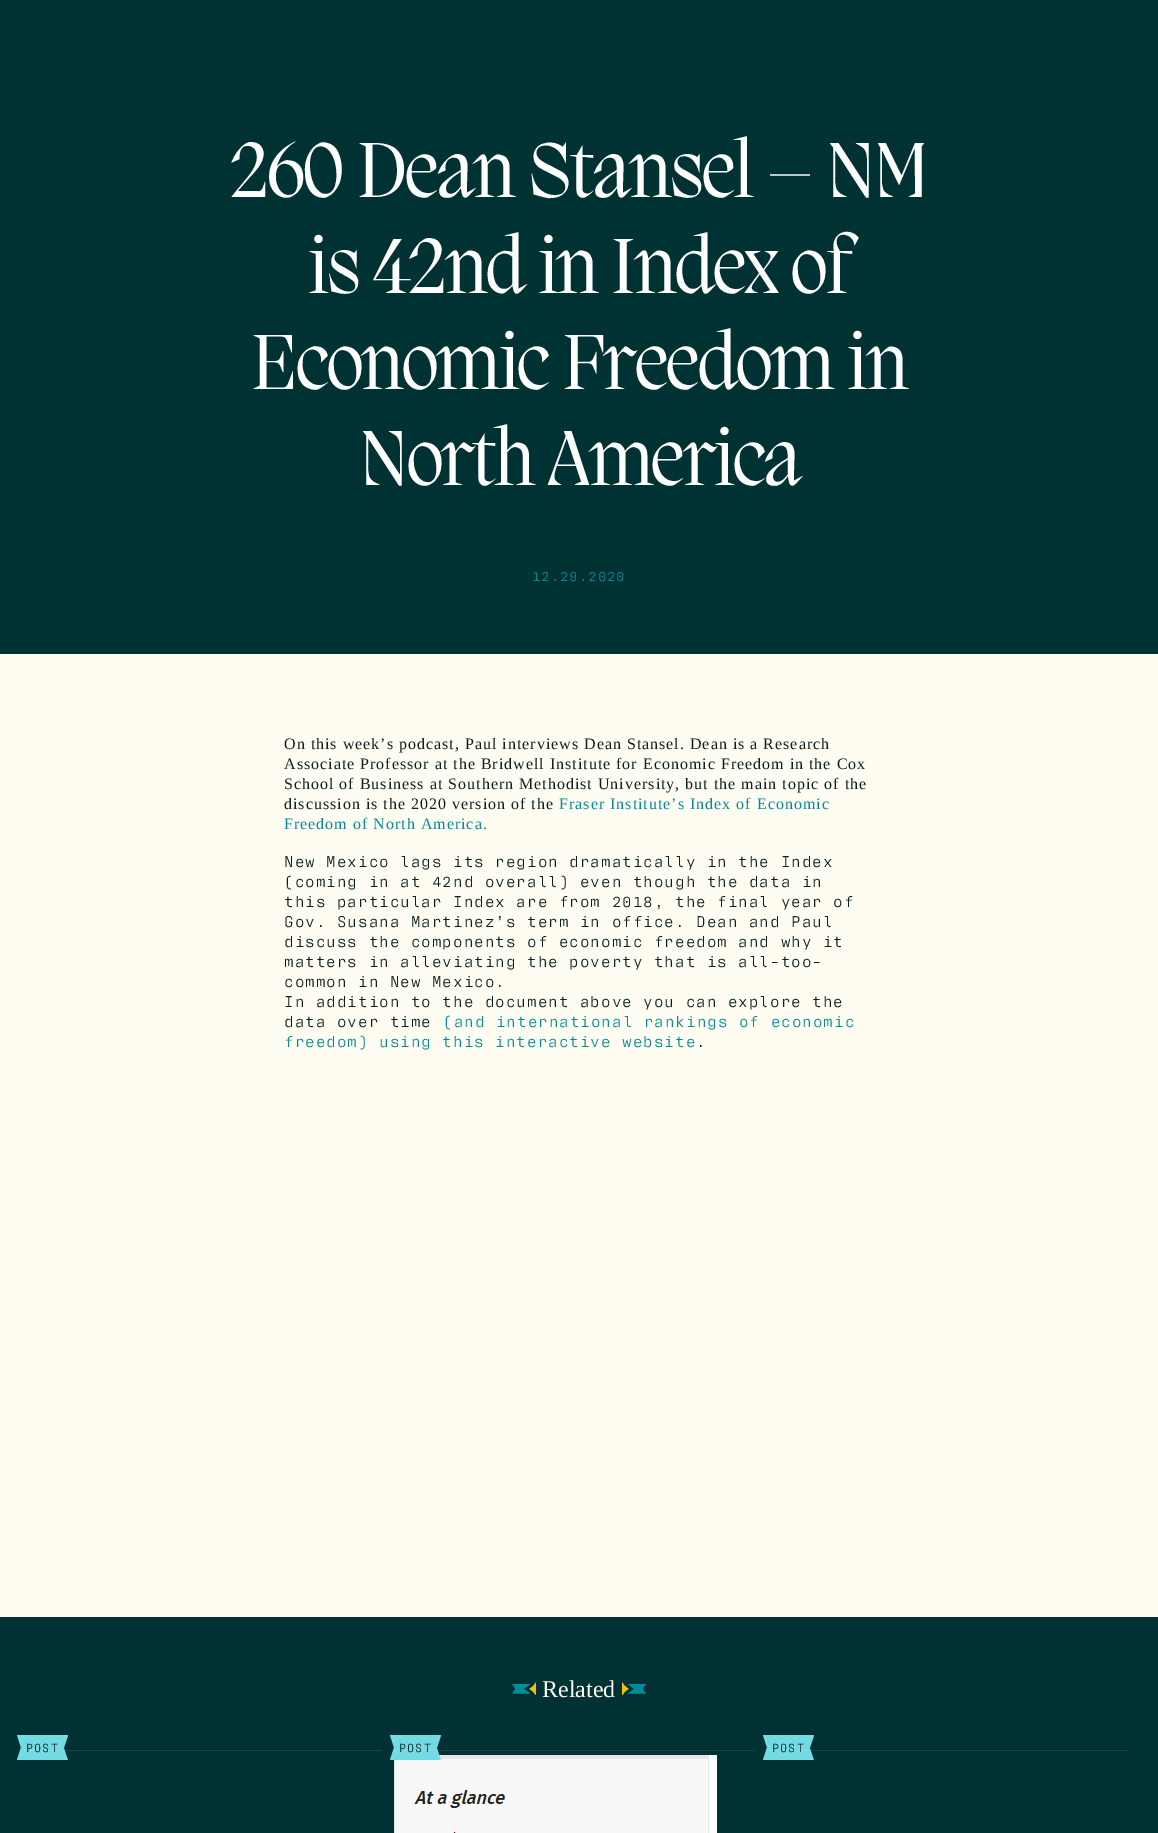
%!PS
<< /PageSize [1158 1833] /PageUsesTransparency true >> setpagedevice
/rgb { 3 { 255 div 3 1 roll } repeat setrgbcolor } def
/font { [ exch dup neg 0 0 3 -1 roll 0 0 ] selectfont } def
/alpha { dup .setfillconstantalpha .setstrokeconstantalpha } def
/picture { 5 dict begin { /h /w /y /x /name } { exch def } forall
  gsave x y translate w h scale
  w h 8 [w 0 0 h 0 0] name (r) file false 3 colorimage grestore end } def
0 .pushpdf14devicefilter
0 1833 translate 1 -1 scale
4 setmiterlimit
0 49 51 rgb
0 0 1158 1833 rectfill
255 252 242 rgb
0 654 1158 963 rectfill
(img/1.rgb) 512 1682 24 13 picture
(img/2.rgb) 622 1682 24 13 picture
115 218 227 rgb
21 1735 43 25 rectfill
115 221 230 rgb
21 1760 moveto 17 1760 lineto 21 1747.5 lineto closepath 21 1747.5 moveto 17 1735 lineto 21 1735 lineto closepath eofill
(img/3.rgb) 64 1735 4 25 picture
0.1 alpha
255 252 242 rgb
64 1735 4 1 rectfill
255 245 235 rgb
21 1750 361 1 rectfill
1 alpha
(img/5.rgb) 394 1755 323 78 picture
115 218 227 rgb
394 1735 43 25 rectfill
115 221 230 rgb
394 1760 moveto 390 1760 lineto 394 1747.5 lineto closepath 394 1747.5 moveto 390 1735 lineto 394 1735 lineto closepath eofill
(img/4.rgb) 437 1735 4 25 picture
0.1 alpha
[
  [437 1735 4 1 255 252 242]
  [394 1750 361 1 255 245 235]
] { aload pop rgb rectfill } forall
1 alpha
[
  [767 1735 43 25 115 218 227]
] { aload pop rgb rectfill } forall
115 221 230 rgb
767 1760 moveto 763 1760 lineto 767 1747.5 lineto closepath 767 1747.5 moveto 763 1735 lineto 767 1735 lineto closepath eofill
(img/3.rgb) 810 1735 4 25 picture
0.1 alpha
255 252 242 rgb
810 1735 4 1 rectfill
255 245 235 rgb
767 1750 361 1 rectfill
/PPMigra-Regular 80 font
1 alpha
255 255 255 rgb
230 197 moveto -2 0 (260 Dean Stansel – NM) ashow
308 293 moveto -2 0 (is 42nd in Index of) ashow
251 389 moveto -2 0 (Economic Freedom in) ashow
359 485 moveto -2 0 (North America) ashow
/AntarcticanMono-Regular 14 font
0 141 152 rgb
532 581 moveto 1 0 (12.29.2020) ashow
/LiberationSerif-Regular 16 font
10 32 33 rgb
284 749 moveto 1 0 (On this week’s podcast, Paul interviews Dean Stansel. Dean is a Research) ashow
284 769 moveto 1 0 (Associate Professor at the Bridwell Institute for Economic Freedom in the Cox) ashow
284 789 moveto 1 0 (School of Business at Southern Methodist University, but the main topic of the) ashow
284 809 moveto 1 0 (discussion is the 2020 version of the) ashow
0 141 152 rgb
559 809 moveto 1 0 (Fraser Institute’s Index of Economic) ashow
284 829 moveto 1 0 (Freedom of North America.) ashow
/AntarcticanMono-Regular 16 font
10 32 33 rgb
284 867 moveto 1 0 (New Mexico lags its region dramatically in the Index) ashow
284 887 moveto 1 0 (\(coming in at 42nd overall\) even though the data in) ashow
284 907 moveto 1 0 (this particular Index are from 2018, the final year of) ashow
284 927 moveto 1 0 (Gov. Susana Martinez’s term in office. Dean and Paul) ashow
284 947 moveto 1 0 (discuss the components of economic freedom and why it) ashow
284 967 moveto 1 0 (matters in alleviating the poverty that is all-too-) ashow
284 987 moveto 1 0 (common in New Mexico.) ashow
284 1007 moveto 1 0 (In addition to the document above you can explore the) ashow
284 1027 moveto 1 0 (data over time) ashow
0 141 152 rgb
443 1027 moveto 1 0 (\(and international rankings of economic) ashow
284 1047 moveto 1 0 (freedom\) using this interactive website) ashow
10 32 33 rgb
696 1047 moveto 1 0 (.) ashow
/LiberationSerif-Regular 24 font
255 252 242 rgb
542 1697 moveto (Related) show
/AntarcticanMono-Regular 12 font
10 32 33 rgb
26 1752 moveto 1 0 (POST) ashow
399 1752 moveto 1 0 (POST) ashow
772 1752 moveto 1 0 (POST) ashow
.poppdf14devicefilter showpage
